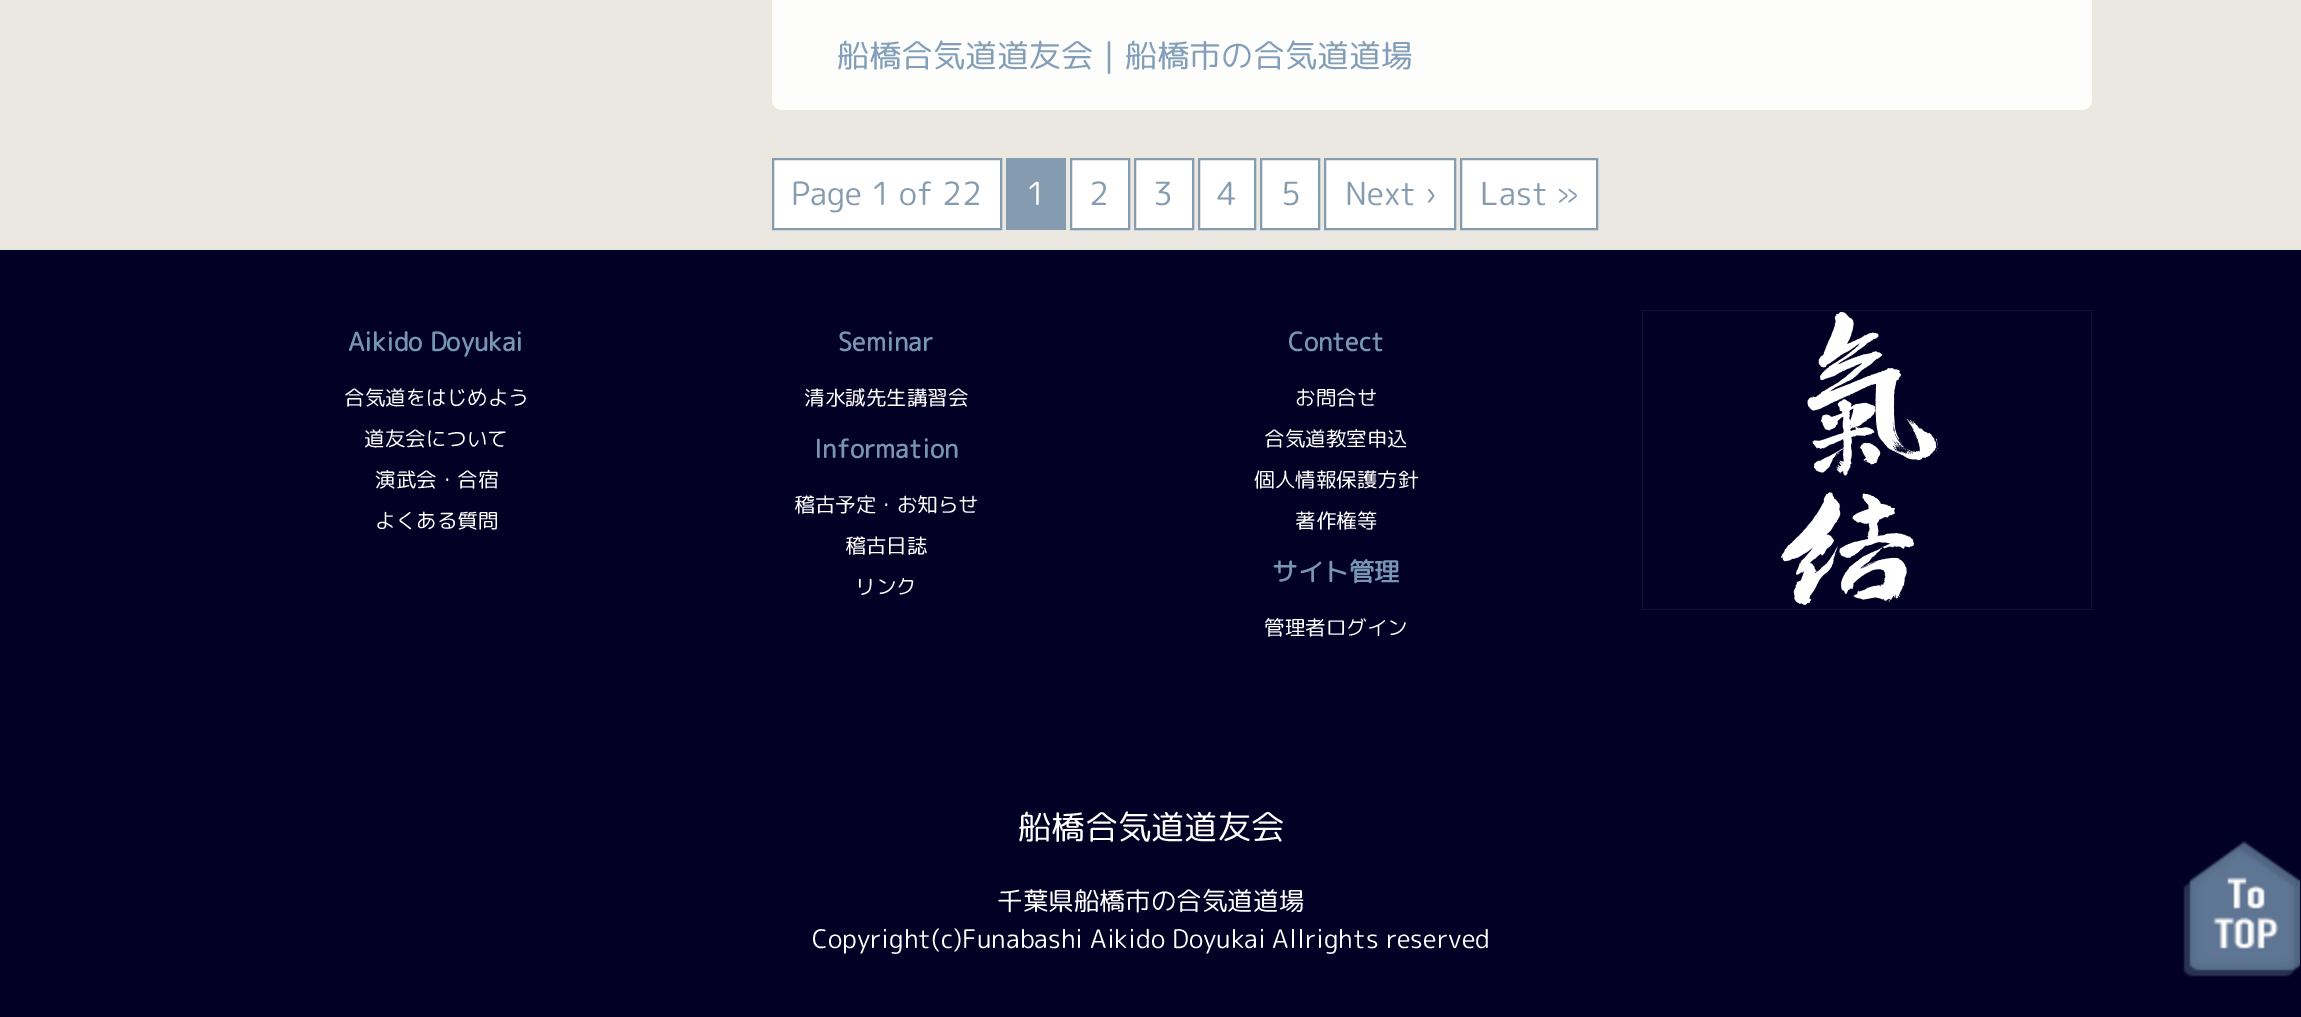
%!PS
<< /PageSize [2301 1017] >> setpagedevice
/rgb { 3 { 255 div 3 1 roll } repeat setrgbcolor } def
/font { [ exch dup neg 0 0 3 -1 roll 0 0 ] selectfont } def
/roundrect { 5 dict begin { /r /h /w /y /x } { exch def } forall
  x r add y moveto x w add y 2 copy h add r arct x w add y h add x 1 index r arct
  x y h add x y r arct x y 2 copy exch w add exch r arct closepath end } def
/picture { 5 dict begin { /h /w /y /x /name } { exch def } forall
  gsave x y translate w h scale
  w h 8 [w 0 0 h 0 0] name (r) file false 3 colorimage grestore end } def
0 1017 translate 1 -1 scale
4 setmiterlimit
235 231 225 rgb
0 0 2301 1017 rectfill
253 253 252 rgb
772 -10 1320 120 10 roundrect fill
255 255 255 rgb
773 159 moveto 1001 159 lineto 1001 229 lineto 773 229 lineto closepath gsave fill grestore
133 155 175 rgb
2 setlinewidth
stroke
1006 158 60 72 rectfill
255 255 255 rgb
1071 159 moveto 1129 159 lineto 1129 229 lineto 1071 229 lineto closepath gsave fill grestore
133 155 175 rgb
stroke
255 255 255 rgb
1135 159 moveto 1193 159 lineto 1193 229 lineto 1135 229 lineto closepath gsave fill grestore
133 155 175 rgb
stroke
255 255 255 rgb
1199 159 moveto 1255 159 lineto 1255 229 lineto 1199 229 lineto closepath gsave fill grestore
133 155 175 rgb
stroke
255 255 255 rgb
1261 159 moveto 1319 159 lineto 1319 229 lineto 1261 229 lineto closepath gsave fill grestore
133 155 175 rgb
stroke
255 255 255 rgb
1325 159 moveto 1455 159 lineto 1455 229 lineto 1325 229 lineto closepath gsave fill grestore
133 155 175 rgb
stroke
255 255 255 rgb
1461 159 moveto 1597 159 lineto 1597 229 lineto 1461 229 lineto closepath gsave fill grestore
133 155 175 rgb
stroke
3 0 37 rgb
0 250 2301 767 rectfill
(img/1.rgb) 1642 310 450 300 picture
(img/2.rgb) 2183 841 117 136 picture
/RoundedMplus1c-Regular 32 font
131 158 185 rgb
837 67 moveto (船橋合気道道友会｜船橋市の合気道道場) show
133 155 175 rgb
791 205 moveto (Page 1 of 22) show
255 255 255 rgb
1026 205 moveto (1) show
133 155 175 rgb
[
  [(2) 1089 205]
  [(3) 1153 205]
  [(4) 1217 205]
  [(5) 1281 205]
  [(Next ›) 1345 205]
  [(Last ») 1480 205]
] { aload pop moveto show } forall
/RoundedMplus1c-Bold 25.6 font
119 150 180 rgb
348 351 moveto (Aikido Doyukai) show
/RoundedMplus1c-Regular 20.5 font
255 255 255 rgb
[
  [(合気道をはじめよう) 344 405]
  [(道友会について) 364 446]
  [(演武会・合宿) 375 487]
  [(よくある質問) 375 528]
] { aload pop moveto show } forall
/RoundedMplus1c-Bold 25.6 font
119 150 180 rgb
838 351 moveto (Seminar) show
/RoundedMplus1c-Regular 20.5 font
255 255 255 rgb
804 405 moveto (清水誠先生講習会) show
/RoundedMplus1c-Bold 25.6 font
119 150 180 rgb
814 458 moveto (Information) show
/RoundedMplus1c-Regular 20.5 font
255 255 255 rgb
[
  [(稽古予定・お知らせ) 794 512]
  [(稽古日誌) 845 553]
  [(リンク) 855 594]
] { aload pop moveto show } forall
/RoundedMplus1c-Bold 25.6 font
119 150 180 rgb
1288 351 moveto (Contect) show
/RoundedMplus1c-Regular 20.5 font
255 255 255 rgb
[
  [(お問合せ) 1295 405]
  [(合気道教室申込) 1264 446]
  [(個人情報保護方針) 1254 487]
  [(著作権等) 1295 528]
] { aload pop moveto show } forall
/RoundedMplus1c-Bold 25.6 font
119 150 180 rgb
1272 581 moveto (サイト管理) show
/RoundedMplus1c-Regular 20.5 font
255 255 255 rgb
1264 635 moveto (管理者ログイン) show
/RoundedMplus1c-Regular 33.25 font
1018 839 moveto (船橋合気道道友会) show
/RoundedMplus1c-Regular 25.6 font
997 910 moveto (千葉県船橋市の合気道道場) show
812 948 moveto (Copyright\(c\)Funabashi Aikido Doyukai Allrights reserved) show
showpage
